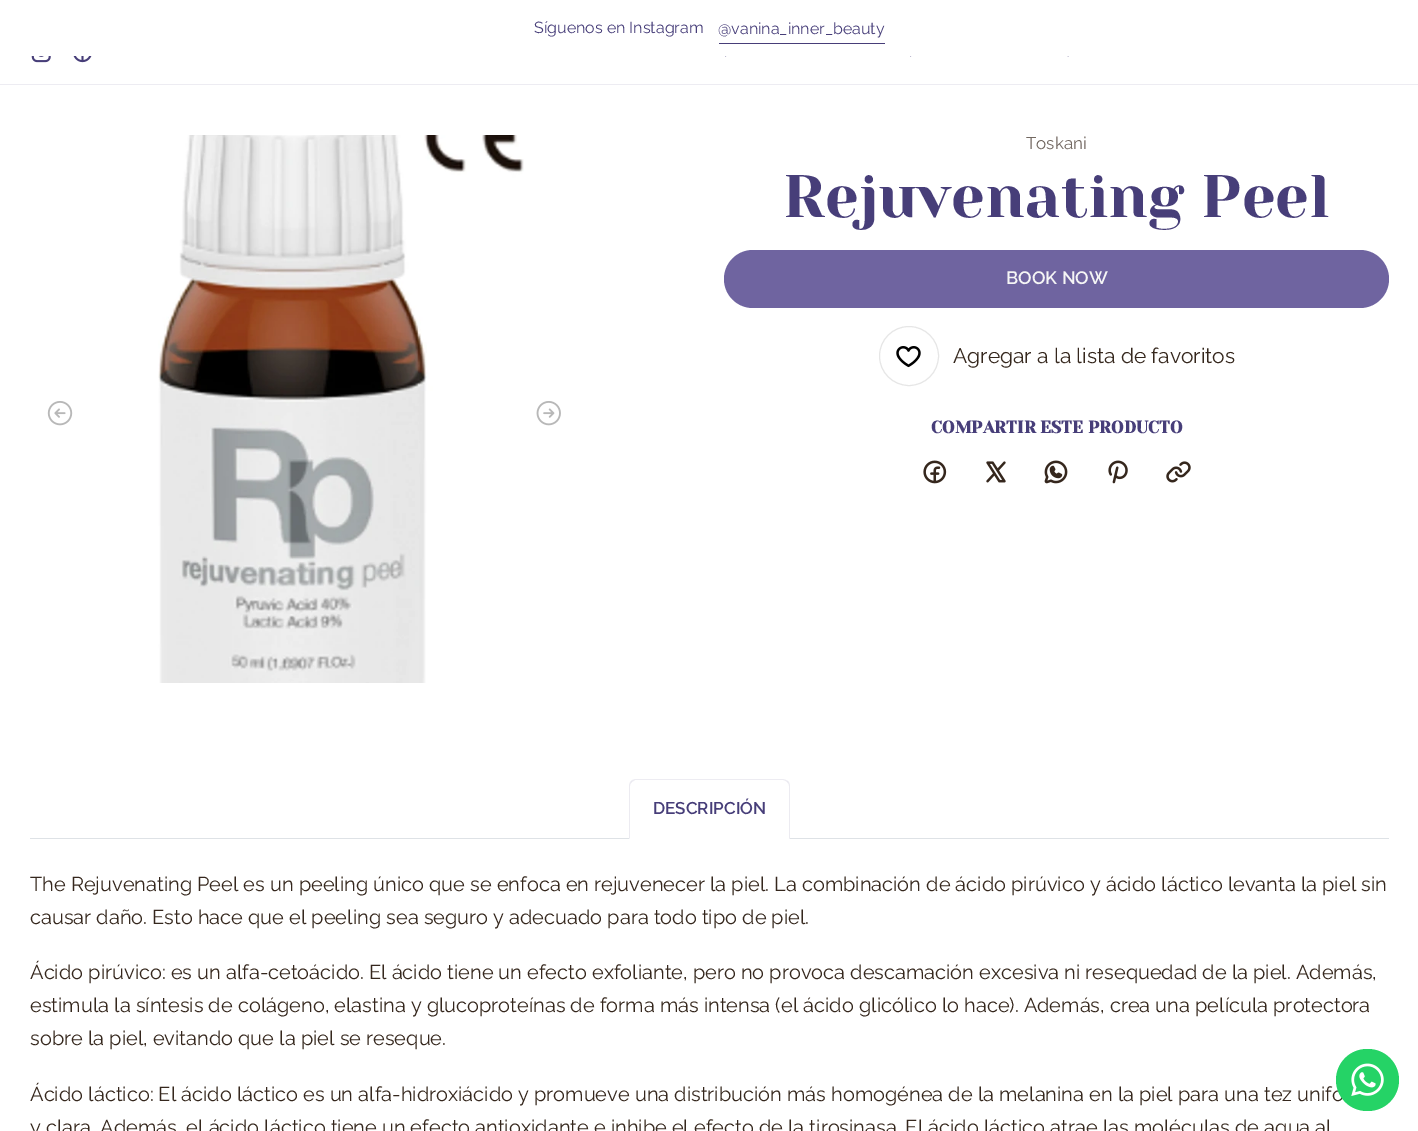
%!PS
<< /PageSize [1418 1131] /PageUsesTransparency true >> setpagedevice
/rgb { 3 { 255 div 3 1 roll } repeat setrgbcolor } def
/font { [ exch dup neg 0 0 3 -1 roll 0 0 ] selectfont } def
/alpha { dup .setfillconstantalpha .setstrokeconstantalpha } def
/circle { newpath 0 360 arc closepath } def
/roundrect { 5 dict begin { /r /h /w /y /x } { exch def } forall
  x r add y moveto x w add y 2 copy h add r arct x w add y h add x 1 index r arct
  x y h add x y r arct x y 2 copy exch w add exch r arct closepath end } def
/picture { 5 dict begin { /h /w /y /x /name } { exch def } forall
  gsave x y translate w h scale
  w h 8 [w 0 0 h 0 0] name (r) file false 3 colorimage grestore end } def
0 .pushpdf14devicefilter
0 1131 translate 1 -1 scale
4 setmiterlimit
255 255 255 rgb
0 0 1418 1131 rectfill
71 62 121 rgb
719 43 166 1 rectfill
237 236 242 rgb
0 84 1418 1 rectfill
(img/1.rgb) 31 56 20 7 picture
(img/2.rgb) 73 56 19 7 picture
(img/3.rgb) 725 56 2 1 picture
(img/3.rgb) 910 56 2 1 picture
(img/4.rgb) 1067 56 2 1 picture
(img/5.rgb) 47 401 26 25 picture
(img/6.rgb) 158 135 366 548 picture
(img/7.rgb) 536 401 25 25 picture
111 100 160 rgb
724 250 665 58 29 roundrect fill
230 230 230 rgb
909 356 29.5 circle stroke
(img/8.rgb) 896 346 25 22 picture
(img/9.rgb) 923 460 24 24 picture
(img/10.rgb) 986 461 20 22 picture
(img/11.rgb) 1044 460 24 24 picture
(img/12.rgb) 1108 460 20 24 picture
(img/13.rgb) 1166 461 25 22 picture
222 226 230 rgb
30 838 1359 1 rectfill
237 236 242 rgb
636 779 moveto 634 779 632 780 631 781 curveto 632 782 lineto 635 780 lineto 783 780 lineto 784 780 786 781 787 782 curveto 788 781 lineto 786 780 784 779 782 779 curveto closepath fill
0.1 alpha
71 62 121 rgb
788 781 moveto 789 782 790 784 790 786 curveto 790 839 lineto 789 838 lineto 789 786 lineto 789 784 788 783 787 782 curveto closepath fill
1 alpha
255 255 255 rgb
790 839 moveto 629 839 lineto 630 838 lineto 789 838 lineto closepath fill
0.1 alpha
71 62 121 rgb
631 781 moveto 630 782 629 784 629 786 curveto 629 838 lineto 630 838 lineto 630 786 lineto 630 784 631 783 632 782 curveto closepath fill
/Raleway-Regular 16 font
1 alpha
534 33 moveto (Síguenos en Instagram) show
718 34 moveto (@vanina_inner_beauty) show
/Raleway-Regular 17 font
114 104 97 rgb
1026 149 moveto (Toskani) show
/YesevaOne-Regular 60 font
71 62 121 rgb
783 217 moveto (Rejuvenating Peel) show
/Raleway-SemiBold 18 font
245 245 245 rgb
1006 284 moveto (BOOK NOW) show
/Raleway-Regular 21 font
53 39 29 rgb
953 363 moveto (Agregar a la lista de favoritos) show
/YesevaOne-Bold 17 font
71 62 121 rgb
931 433 moveto (COMPARTIR ESTE PRODUCTO) show
/Raleway-SemiBold 17 font
653 814 moveto (DESCRIPCIÓN) show
/Raleway-Regular 20 font
53 39 29 rgb
[
  [(The Rejuvenating Peel es un peeling único que se enfoca en rejuvenecer la piel. La combinación de ácido pirúvico y ácido láctico levanta la piel sin) 30 891]
  [(causar daño. Esto hace que el peeling sea seguro y adecuado para todo tipo de piel.) 30 924]
  [(Ácido pirúvico: es un alfa-cetoácido. El ácido tiene un efecto exfoliante, pero no provoca descamación excesiva ni resequedad de la piel. Además,) 30 979]
  [(estimula la síntesis de colágeno, elastina y glucoproteínas de forma más intensa \(el ácido glicólico lo hace\). Además, crea una película protectora) 30 1012]
  [(sobre la piel, evitando que la piel se reseque.) 30 1045]
  [(Ácido láctico: El ácido láctico es un alfa-hidroxiácido y promueve una distribución más homogénea de la melanina en la piel para una tez unifo) 30 1101]
  [(y clara. Además, el ácido láctico tiene un efecto antioxidante e inhibe el efecto de la tirosinasa. El ácido láctico atrae las moléculas de agua al) 30 1134]
] { aload pop moveto show } forall
37 211 102 rgb
1336 1049 63 62 31 roundrect fill
(img/14.rgb) 1351 1063 33 33 picture
.poppdf14devicefilter showpage
